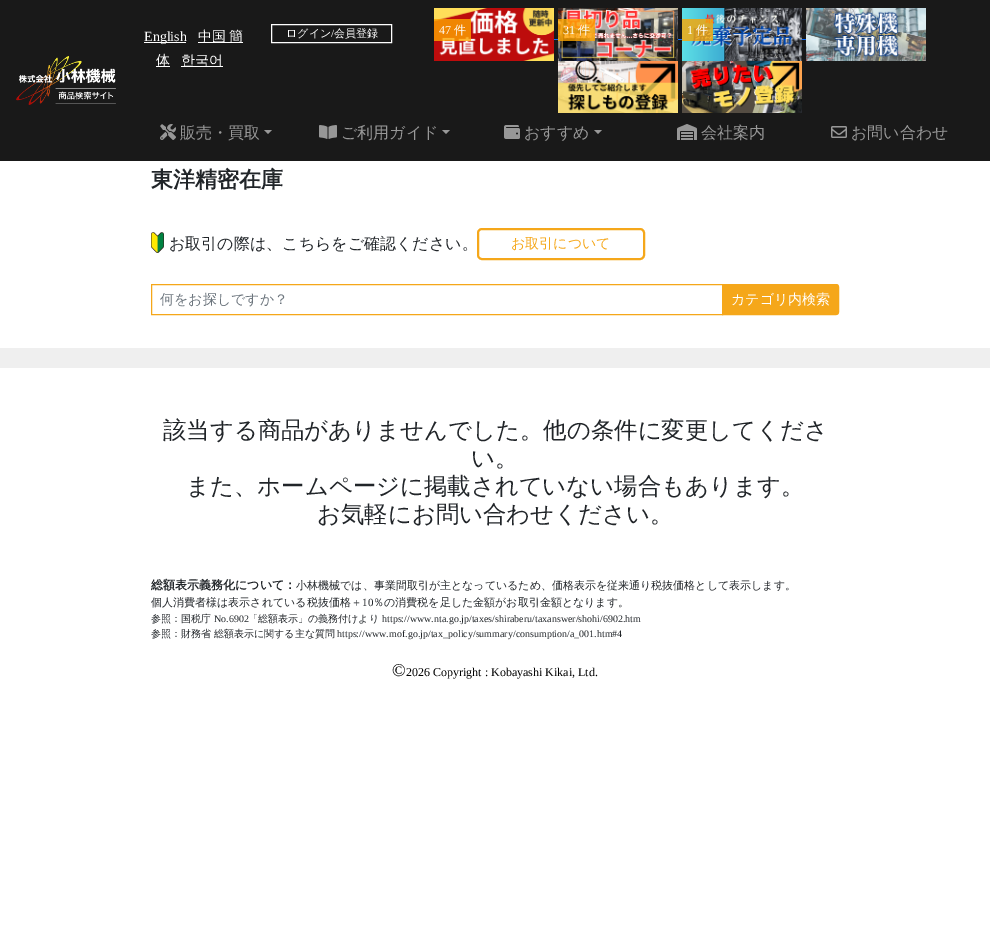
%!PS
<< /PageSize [990 926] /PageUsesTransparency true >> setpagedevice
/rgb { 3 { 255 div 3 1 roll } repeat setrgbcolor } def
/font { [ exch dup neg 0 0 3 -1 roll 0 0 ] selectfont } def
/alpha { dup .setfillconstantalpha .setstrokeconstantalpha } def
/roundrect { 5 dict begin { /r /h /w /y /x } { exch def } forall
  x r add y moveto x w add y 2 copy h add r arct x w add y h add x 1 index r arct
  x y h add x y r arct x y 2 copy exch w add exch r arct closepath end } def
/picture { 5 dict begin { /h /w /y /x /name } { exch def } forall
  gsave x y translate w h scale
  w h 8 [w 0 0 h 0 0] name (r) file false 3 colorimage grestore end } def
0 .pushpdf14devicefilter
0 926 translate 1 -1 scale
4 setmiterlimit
255 255 255 rgb
0 0 990 926 rectfill
25 25 25 rgb
0 0 990 161 rectfill
(img/1.rgb) 16 56 100 49 picture
[
  [144 42 42 1 255 255 255]
  [198 42 45 1 255 255 255]
  [156 66 14 1 255 255 255]
  [181 66 42 1 255 255 255]
] { aload pop rgb rectfill } forall
271.5 24.5 120 18 rectstroke
(img/2.rgb) 434 8 120 53 picture
0.8 alpha
253 165 0 rgb
434 19 37 22 rectfill
1 alpha
13 110 253 rgb
554 39 4 1 rectfill
(img/3.rgb) 558 8 120 53 picture
0.8 alpha
253 165 0 rgb
558 19 37 22 rectfill
1 alpha
13 110 253 rgb
678 39 4 1 rectfill
(img/4.rgb) 682 8 120 53 picture
0.8 alpha
253 165 0 rgb
682 19 31 22 rectfill
1 alpha
13 110 253 rgb
802 39 4 1 rectfill
(img/5.rgb) 806 8 120 53 picture
(img/6.rgb) 558 61 120 52 picture
(img/7.rgb) 682 61 120 52 picture
(img/8.rgb) 160 124 16 16 picture
152 152 152 rgb
264 130 moveto 272 130 lineto 268 134 lineto closepath fill
(img/9.rgb) 319 125 18 14 picture
442 130 moveto 450 130 lineto 446 134 lineto closepath fill
(img/10.rgb) 504 125 16 14 picture
594 130 moveto 602 130 lineto 598 134 lineto closepath fill
(img/11.rgb) 677 124 20 16 picture
(img/12.rgb) 831 126 16 12 picture
(img/13.rgb) 151 232 13 21 picture
245 167 26 rgb
2 setlinewidth
478 229 166 30 4 roundrect stroke
722.5 284.5 moveto 836 284.5 lineto 837.5 284.5 838.5 285.5 838.5 287 curveto 838.5 312 lineto 838.5 313.5 837.5 314.5 836 314.5 curveto 722.5 314.5 lineto closepath gsave fill grestore
1 setlinewidth
stroke
151.5 284.5 571 30 rectstroke
239 239 239 rgb
0 348 990 20 rectfill
/LiberationSerif-Regular 14 font
255 255 255 rgb
144 41 moveto (English) show
/WenQuanYiZenHei-Medium 14 font
198 41 moveto -1 0 32 (中国 簡) widthshow
156 65 moveto (体) show
181 65 moveto (한국어) show
/WenQuanYiZenHei-Medium 11 font
286 37 moveto (ログイン) show
/LiberationSerif-Regular 11 font
331 37 moveto (/) show
/WenQuanYiZenHei-Medium 11 font
334 37 moveto (会員登録) show
/LiberationSerif-Regular 12 font
439 34 moveto (47) show
/WenQuanYiZenHei-Medium 12 font
454 34 moveto (件) show
/LiberationSerif-Regular 12 font
563 34 moveto (31) show
/WenQuanYiZenHei-Medium 12 font
578 34 moveto (件) show
/LiberationSerif-Regular 12 font
687 34 moveto (1) show
/WenQuanYiZenHei-Medium 12 font
696 34 moveto (件) show
/WenQuanYiZenHei-Medium 16 font
152 152 152 rgb
[
  [(販売・買取) 180 138]
  [(ご利用ガイド) 341 138]
  [(おすすめ) 524 138]
  [(会社案内) 701 138]
  [(お問い合わせ) 851 138]
] { aload pop moveto show } forall
/WenQuanYiZenHei-Bold 22 font
33 37 41 rgb
151 187 moveto (東洋精密在庫) show
/WenQuanYiZenHei-Medium 16 font
169 249 moveto (お取引の際は、こちらをご確認ください。) show
/WenQuanYiZenHei-Medium 14 font
245 167 26 rgb
511 248 moveto (お取引について) show
108 117 125 rgb
160 304 moveto (何をお探しですか？) show
255 255 255 rgb
731 304 moveto (カテゴリ内検索) show
/WenQuanYiZenHei-Medium 23.4 font
33 37 41 rgb
[
  [(該当する商品がありませんでした。他の条件に変更してくださ) 163 438]
  [(い。) 471 466]
  [(また、ホームページに掲載されていない場合もあります。) 186 494]
  [(お気軽にお問い合わせください。) 317 522]
] { aload pop moveto show } forall
/WenQuanYiZenHei-Bold 12 font
151 589 moveto (総額表示義務化について：) show
/WenQuanYiZenHei-Medium 11 font
296 589 moveto (小林機械では、事業間取引が主となっているため、価格表示を従来通り税抜価格として表示します。) show
151 606 moveto (個人消費者様は表示されている税抜価格＋) show
/LiberationSerif-Regular 11 font
362 606 moveto (10) show
/WenQuanYiZenHei-Medium 11 font
373 606 moveto (％の消費税を足した金額がお取引金額となります。) show
/WenQuanYiZenHei-Medium 10 font
151 622 moveto (参照：国税庁) show
/LiberationSerif-Regular 10 font
214 622 moveto (No.6902) show
/WenQuanYiZenHei-Medium 10 font
248 622 moveto (「総額表示」の義務付けより) show
/LiberationSerif-Regular 10 font
382 622 moveto (https://www.nta.go.jp/taxes/shiraberu/taxanswer/shohi/6902.htm) show
/WenQuanYiZenHei-Medium 10 font
151 637 moveto (参照：財務省 総額表示に関する主な質問) show
/LiberationSerif-Regular 10 font
337 637 moveto (https://www.mof.go.jp/tax_policy/summary/consumption/a_001.htm#4) show
/LiberationSerif-Regular 18 font
0 0 0 rgb
392 676 moveto (©) show
/LiberationSerif-Regular 12 font
406 676 moveto (2026 Copyright : Kobayashi Kikai, Ltd.) show
.poppdf14devicefilter showpage
